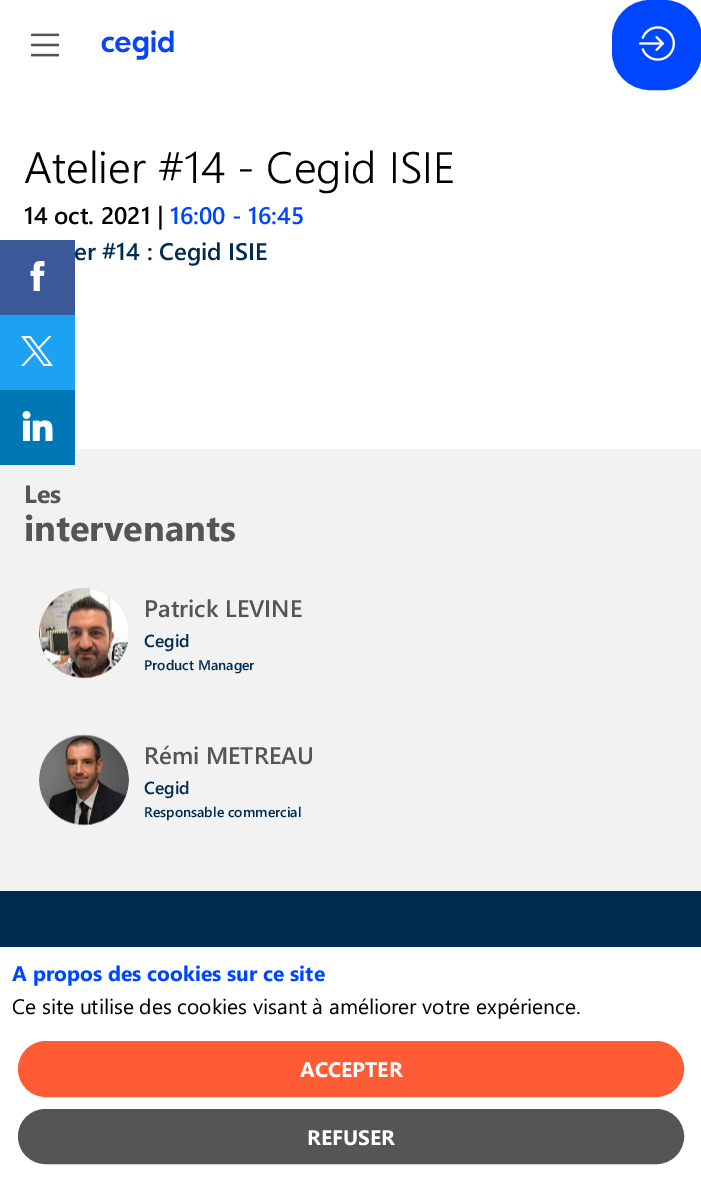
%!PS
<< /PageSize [701 1181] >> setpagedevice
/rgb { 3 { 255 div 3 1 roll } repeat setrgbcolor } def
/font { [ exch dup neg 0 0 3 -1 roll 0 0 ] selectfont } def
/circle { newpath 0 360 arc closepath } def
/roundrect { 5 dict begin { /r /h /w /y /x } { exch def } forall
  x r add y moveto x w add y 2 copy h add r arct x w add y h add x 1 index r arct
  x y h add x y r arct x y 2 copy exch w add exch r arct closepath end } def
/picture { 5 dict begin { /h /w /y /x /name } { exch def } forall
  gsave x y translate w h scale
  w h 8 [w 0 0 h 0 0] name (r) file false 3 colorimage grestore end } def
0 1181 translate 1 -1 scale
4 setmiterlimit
255 255 255 rgb
0 0 701 1181 rectfill
(img/1.rgb) 31 33 28 24 picture
(img/2.rgb) 101 30 73 30 picture
0 70 254 rgb
613.5 1.5 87 87 36.5 roundrect gsave fill grestore
3 setlinewidth
stroke
(img/3.rgb) 639 26 36 35 picture
59 89 152 rgb
0 240 75 75 rectfill
(img/4.rgb) 30 261 15 30 picture
29 161 242 rgb
0 315 75 75 rectfill
(img/5.rgb) 21 336 32 30 picture
242 242 242 rgb
0 449 701 442 rectfill
0 119 181 rgb
0 390 75 75 rectfill
(img/6.rgb) 22 411 31 30 picture
0 44 82 rgb
0 891 701 56 rectfill
224 224 224 rgb
84 633 45 circle fill
(img/7.rgb) 39 587 90 92 picture
84 780 45 circle fill
(img/8.rgb) 39 734 90 92 picture
255 92 53 rgb
19.5 1042.5 663 53 26.5 roundrect gsave fill grestore
stroke
85 85 85 rgb
19.5 1110.5 663 52 26 roundrect gsave fill grestore
stroke
/SegoeUI-Light 44 font
0 0 0 rgb
24 183 moveto (Atelier #14 - Cegid ISIE) show
/SegoeUI-SemiBold 24 font
24 224 moveto (14 oct. 2021 |) show
0 70 254 rgb
170 224 moveto (16:00 - 16:45) show
0 44 82 rgb
74 260 moveto (er #14 : Cegid ISIE) show
/SegoeUI-Bold 25 font
85 85 85 rgb
24 503 moveto (Les) show
/SegoeUI-Bold 36 font
24 541 moveto (intervenants) show
/SegoeUI-SemiBold 24 font
144 617 moveto (Patrick LEVINE) show
/SegoeUI-SemiBold 17.5 font
0 44 82 rgb
144 647 moveto (Cegid) show
/SegoeUI-SemiBold 14 font
144 670 moveto (Product Manager) show
/SegoeUI-SemiBold 24 font
85 85 85 rgb
144 764 moveto (Rémi METREAU) show
/SegoeUI-SemiBold 17.5 font
0 44 82 rgb
144 794 moveto (Cegid) show
/SegoeUI-SemiBold 14 font
144 817 moveto (Responsable commercial) show
/SegoeUI-Bold 21 font
0 70 254 rgb
12 981 moveto (A propos des cookies sur ce site) show
/SegoeUI-Regular 21 font
0 0 0 rgb
12 1014 moveto (Ce site utilise des cookies visant à améliorer votre expérience.) show
/SegoeUI-Bold 21 font
255 255 255 rgb
300 1077 moveto (ACCEPTER) show
307 1145 moveto (REFUSER) show
showpage
